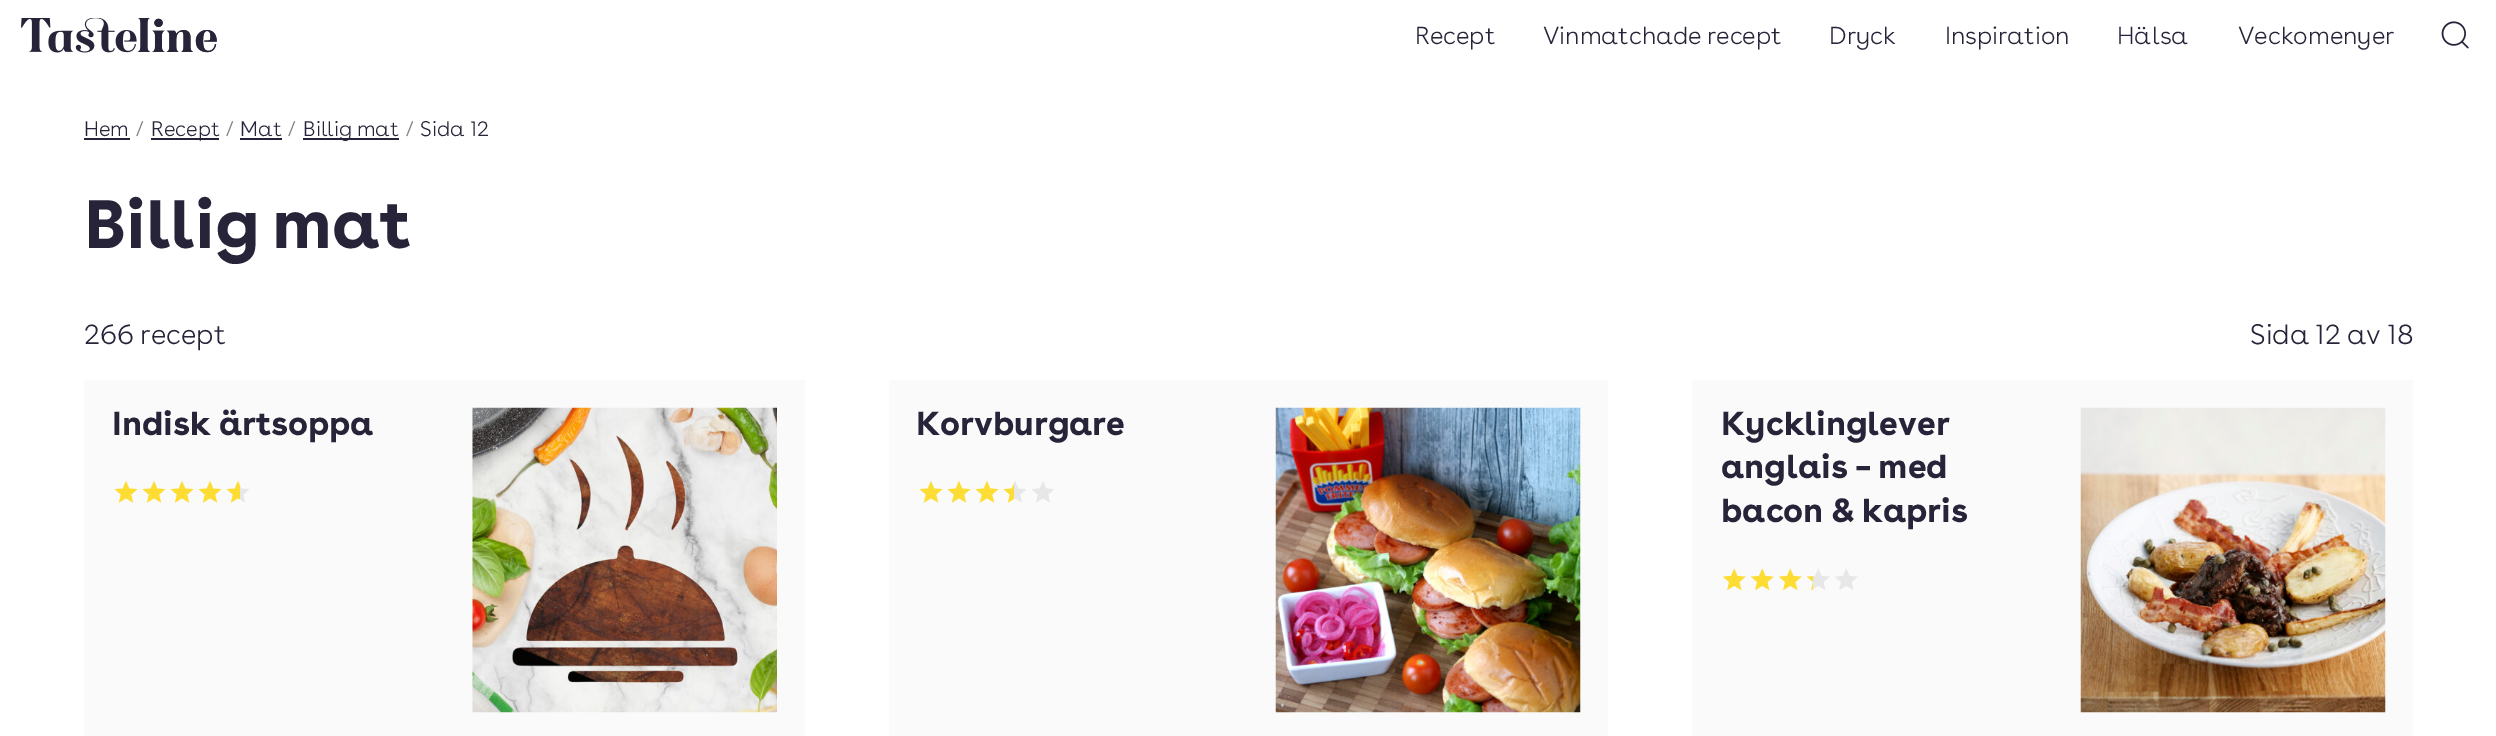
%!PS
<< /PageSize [2496 736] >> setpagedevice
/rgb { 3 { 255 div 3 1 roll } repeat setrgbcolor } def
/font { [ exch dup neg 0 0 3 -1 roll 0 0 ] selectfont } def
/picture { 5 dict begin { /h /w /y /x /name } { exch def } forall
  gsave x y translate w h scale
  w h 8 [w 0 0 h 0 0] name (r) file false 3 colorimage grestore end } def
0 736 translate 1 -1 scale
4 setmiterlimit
255 255 255 rgb
0 0 2496 736 rectfill
(img/1.rgb) 21 18 196 35 picture
(img/2.rgb) 2441 21 28 28 picture
[
  [84 138 46 2 39 36 57]
  [151 138 68 2 39 36 57]
  [240 138 42 2 39 36 57]
  [303 138 96 2 39 36 57]
  [84 380 721 356 250 250 250]
] { aload pop rgb rectfill } forall
(img/3.rgb) 114 480 24 23 picture
(img/3.rgb) 142 480 24 23 picture
(img/3.rgb) 170 480 24 23 picture
(img/3.rgb) 198 480 24 23 picture
(img/4.rgb) 226 480 23 23 picture
(img/5.rgb) 472 407 305 306 picture
889 380 719 356 rectfill
(img/3.rgb) 919 480 24 23 picture
(img/3.rgb) 947 480 24 23 picture
(img/3.rgb) 975 480 24 23 picture
(img/6.rgb) 1003 481 23 22 picture
(img/7.rgb) 1032 481 22 22 picture
(img/8.rgb) 1275 407 306 306 picture
1692 380 721 356 rectfill
(img/9.rgb) 1722 568 24 23 picture
(img/9.rgb) 1750 568 24 23 picture
(img/9.rgb) 1778 568 24 23 picture
(img/10.rgb) 1806 568 24 23 picture
(img/11.rgb) 1834 568 24 22 picture
(img/12.rgb) 2080 407 306 306 picture
/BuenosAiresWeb-Light 24.5 font
39 36 57 rgb
1415 44 moveto (Recept) show
1543 44 moveto -1 0 32 (Vinmatchade recept) widthshow
[
  [(Dryck) 1829 44]
  [(Inspiration) 1945 44]
  [(Hälsa) 2117 44]
  [(Veckomenyer) 2238 44]
] { aload pop moveto show } forall
/BuenosAiresWeb-Light 21 font
84 136 moveto (Hem) show
132 132 132 rgb
136 136 moveto (/) show
39 36 57 rgb
151 136 moveto (Recept) show
132 132 132 rgb
226 136 moveto (/) show
39 36 57 rgb
240 136 moveto (Mat) show
132 132 132 rgb
288 136 moveto (/) show
39 36 57 rgb
303 136 moveto -1 0 32 (Billig mat) widthshow
132 132 132 rgb
406 136 moveto (/) show
39 36 57 rgb
420 136 moveto (Sida 12) show
/BuenosAiresWeb-Bold 68.25 font
84 248 moveto -3 0 32 (Billig mat) widthshow
/BuenosAiresWeb-Light 28 font
84 344 moveto -1 0 32 (266 recept) widthshow
2250 344 moveto -1 0 32 (Sida 12 av 18) widthshow
/BuenosAiresWeb-Bold 33.25 font
[
  [(Indisk ärtsoppa) 112 435]
  [(Korvburgare) 916 435]
  [(Kycklinglever) 1721 435]
] { aload pop moveto show } forall
1721 478 moveto -1 0 32 (anglais – med) widthshow
1721 522 moveto -1 0 32 (bacon & kapris) widthshow
showpage
